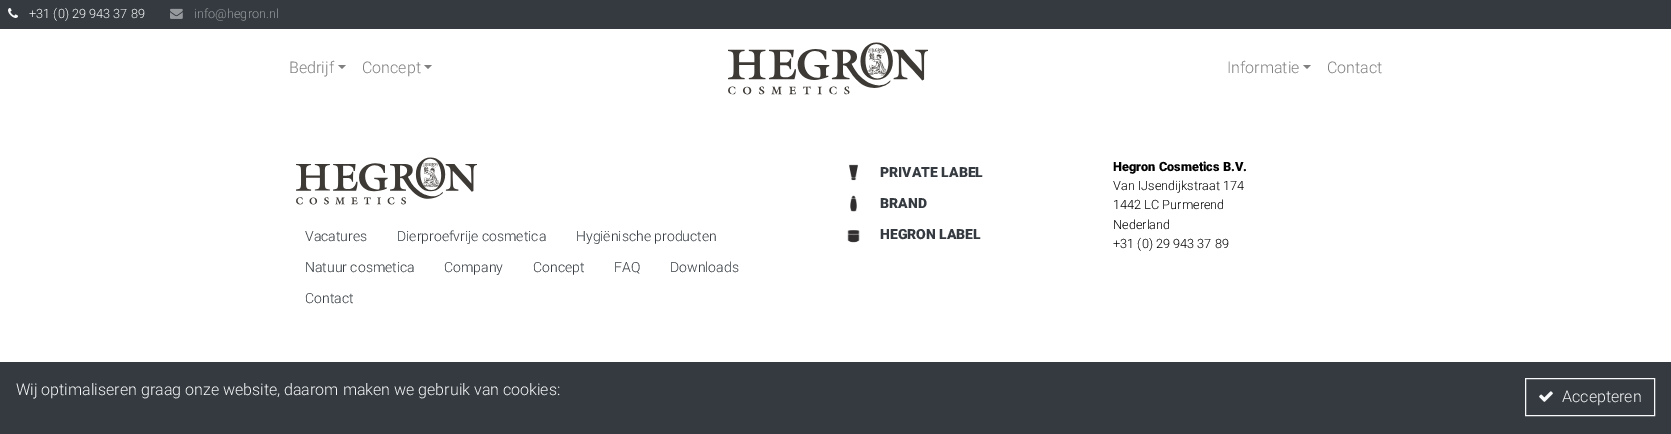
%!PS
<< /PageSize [1671 434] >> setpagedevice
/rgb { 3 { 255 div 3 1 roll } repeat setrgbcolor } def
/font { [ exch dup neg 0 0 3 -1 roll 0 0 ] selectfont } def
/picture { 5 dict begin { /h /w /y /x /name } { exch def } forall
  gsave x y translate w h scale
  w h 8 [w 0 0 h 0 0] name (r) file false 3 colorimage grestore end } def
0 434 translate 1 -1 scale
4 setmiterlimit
255 255 255 rgb
0 0 1671 434 rectfill
52 58 64 rgb
0 0 1671 29 rectfill
(img/1.rgb) 8 8 10 10 picture
(img/2.rgb) 170 8 13 11 picture
128 128 128 rgb
338 65 moveto 346 65 lineto 342 69 lineto closepath fill
424 65 moveto 432 65 lineto 428 69 lineto closepath fill
(img/3.rgb) 728 42 200 53 picture
1303 65 moveto 1311 65 lineto 1307 69 lineto closepath fill
(img/4.rgb) 849 164 9 17 picture
(img/5.rgb) 850 195 7 17 picture
(img/6.rgb) 847 230 13 13 picture
(img/7.rgb) 296 157 181 48 picture
52 58 64 rgb
0 362 1671 72 rectfill
248 249 250 rgb
1525.5 378.5 129 37 rectstroke
(img/8.rgb) 1539 391 14 11 picture
/Roboto-Light 12.75 font
29 18 moveto (+31 \(0\) 29 943 37 89) show
150 154 157 rgb
194 18 moveto (info@hegron.nl) show
/Roboto-Light 16 font
128 128 128 rgb
[
  [(Bedrijf) 289 73]
  [(Concept) 362 73]
  [(Informatie) 1227 73]
  [(Contact) 1327 73]
] { aload pop moveto show } forall
/Roboto-Black 14 font
52 58 64 rgb
[
  [(PRIVATE LABEL) 880 177]
  [(BRAND) 880 208]
  [(HEGRON LABEL) 880 239]
] { aload pop moveto show } forall
/Roboto-Black 12.75 font
0 0 0 rgb
1113 171 moveto (Hegron Cosmetics B.V.) show
/Roboto-Light 12.75 font
[
  [(Van IJsendijkstraat 174) 1113 190]
  [(1442 LC Purmerend) 1113 209]
  [(Nederland) 1113 229]
  [(+31 \(0\) 29 943 37 89) 1113 248]
] { aload pop moveto show } forall
/Roboto-Light 14 font
52 58 64 rgb
[
  [(Vacatures) 305 241]
  [(Dierproefvrije cosmetica) 397 241]
  [(Hygiënische producten) 576 241]
  [(Natuur cosmetica) 305 272]
  [(Company) 444 272]
  [(Concept) 533 272]
  [(FAQ) 614 272]
  [(Downloads) 670 272]
  [(Contact) 305 303]
] { aload pop moveto show } forall
/Roboto-Light 16 font
248 249 250 rgb
16 395 moveto (Wij optimaliseren graag onze website, daarom maken we gebruik van cookies:) show
1562 402 moveto (Accepteren) show
showpage
